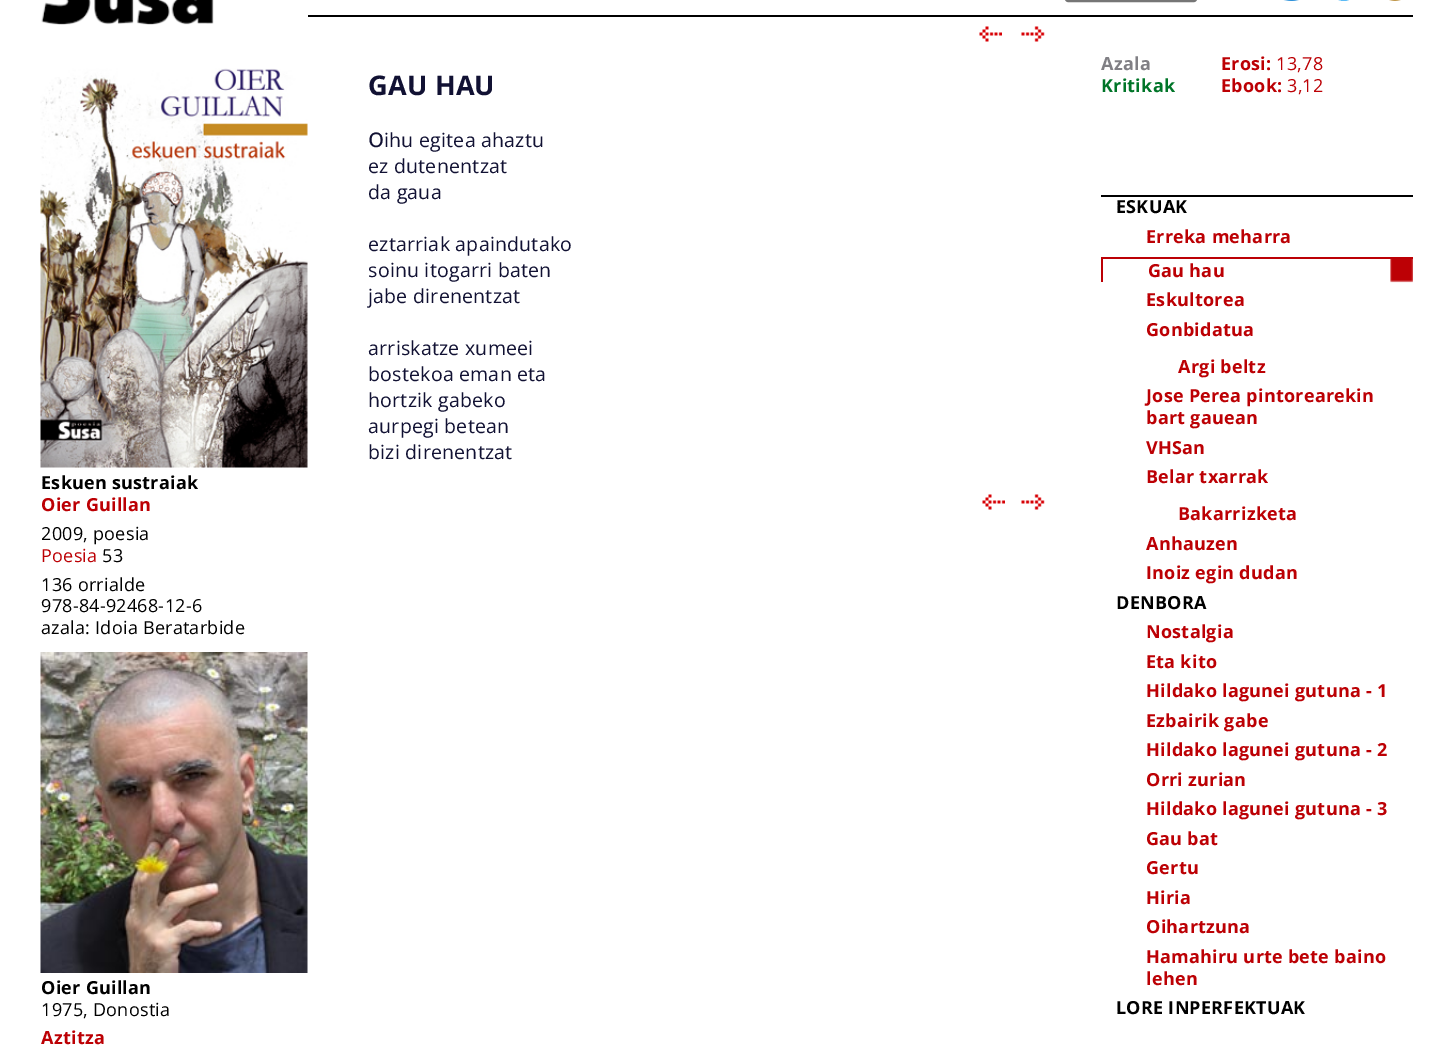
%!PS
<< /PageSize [1453 1060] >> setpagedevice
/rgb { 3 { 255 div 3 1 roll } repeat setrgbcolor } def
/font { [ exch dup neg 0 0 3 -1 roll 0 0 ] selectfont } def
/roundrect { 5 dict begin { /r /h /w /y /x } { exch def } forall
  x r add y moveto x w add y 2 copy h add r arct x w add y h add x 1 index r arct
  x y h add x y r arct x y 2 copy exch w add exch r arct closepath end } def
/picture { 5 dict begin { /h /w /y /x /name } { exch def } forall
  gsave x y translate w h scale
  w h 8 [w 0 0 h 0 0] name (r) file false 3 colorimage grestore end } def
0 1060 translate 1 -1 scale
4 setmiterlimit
255 255 255 rgb
0 0 1453 1060 rectfill
(img/1.rgb) 41 0 173 25 picture
(img/2.rgb) 40 68 268 400 picture
(img/3.rgb) 40 652 268 321 picture
0 0 0 rgb
308 15 1105 2 rectfill
118 118 118 rgb
2 setlinewidth
1066 -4 130 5 2 roundrect stroke
(img/4.rgb) 1283 0 16 1 picture
(img/5.rgb) 1338 0 11 1 picture
(img/6.rgb) 1389 0 12 1 picture
(img/7.rgb) 979 26 23 16 picture
(img/8.rgb) 1021 26 24 16 picture
(img/7.rgb) 982 494 23 16 picture
(img/8.rgb) 1021 494 24 16 picture
0 0 0 rgb
1101 195 312 2 rectfill
(img/9.rgb) 1390 259 23 24 picture
188 0 5 rgb
1101 257 312 2 rectfill
1101 257 2 25 rectfill
/OpenSans-Bold 18 font
0 0 0 rgb
41 489 moveto 0.25 0 (Eskuen sustraiak) ashow
188 0 4 rgb
41 511 moveto 0.25 0 (Oier Guillan) ashow
/OpenSans-Regular 18 font
0 0 0 rgb
41 540 moveto 0.25 0 (2009, poesia) ashow
188 0 4 rgb
41 562 moveto 0.25 0 (Poesia) ashow
0 0 0 rgb
102 562 moveto 0.25 0 (53) ashow
41 591 moveto 0.25 0 (136 orrialde) ashow
41 612 moveto 0.25 0 (978-84-92468-12-6) ashow
41 634 moveto 0.25 0 (azala: Idoia Beratarbide) ashow
/OpenSans-Bold 18 font
41 994 moveto 0.25 0 (Oier Guillan) ashow
/OpenSans-Regular 18 font
41 1016 moveto 0.25 0 (1975, Donostia) ashow
/OpenSans-Bold 18 font
188 0 4 rgb
41 1044 moveto 0.25 0 (Aztitza) ashow
/OpenSans-Bold 27 font
17 17 51 rgb
368 95 moveto 0.25 0 (GAU HAU) ashow
/OpenSans-Regular 27 font
368 147 moveto 0.25 0 (o) ashow
/OpenSans-Regular 19.5 font
384 147 moveto 0.25 0 (ihu egitea ahaztu) ashow
368 173 moveto 0.25 0 (ez dutenentzat) ashow
368 199 moveto 0.25 0 (da gaua) ashow
368 251 moveto 0.25 0 (eztarriak apaindutako) ashow
368 277 moveto 0.25 0 (soinu itogarri baten) ashow
368 303 moveto 0.25 0 (jabe direnentzat) ashow
368 355 moveto 0.25 0 (arriskatze xumeei) ashow
368 381 moveto 0.25 0 (bostekoa eman eta) ashow
368 407 moveto 0.25 0 (hortzik gabeko) ashow
368 433 moveto 0.25 0 (aurpegi betean) ashow
368 459 moveto 0.25 0 (bizi direnentzat) ashow
/OpenSans-Bold 18 font
128 127 132 rgb
1101 70 moveto 0.25 0 (Azala) ashow
0 117 40 rgb
1101 92 moveto 0.25 0 (Kritikak) ashow
188 0 4 rgb
1221 70 moveto 0.25 0 (Erosi:) ashow
/OpenSans-Regular 18 font
1276 70 moveto 0.25 0 (13,78) ashow
/OpenSans-Bold 18 font
1221 92 moveto 0.25 0 (Ebook:) ashow
/OpenSans-Regular 18 font
1287 92 moveto 0.25 0 (3,12) ashow
/OpenSans-Bold 18 font
0 0 0 rgb
1116 213 moveto 0.25 0 (ESKUAK) ashow
188 0 4 rgb
1146 243 moveto 0.25 0 (Erreka meharra) ashow
1148 277 moveto 0.25 0 (Gau hau) ashow
1146 306 moveto 0.25 0 (Eskultorea) ashow
1146 336 moveto 0.25 0 (Gonbidatua) ashow
1178 373 moveto 0.25 0 (Argi beltz) ashow
1146 402 moveto 0.25 0 (Jose Perea pintorearekin) ashow
1146 424 moveto 0.25 0 (bart gauean) ashow
1146 454 moveto 0.25 0 (VHSan) ashow
1146 483 moveto 0.25 0 (Belar txarrak) ashow
1178 520 moveto 0.25 0 (Bakarrizketa) ashow
1146 550 moveto 0.25 0 (Anhauzen) ashow
1146 579 moveto 0.25 0 (Inoiz egin dudan) ashow
0 0 0 rgb
1116 609 moveto 0.25 0 (DENBORA) ashow
188 0 4 rgb
1146 638 moveto 0.25 0 (Nostalgia) ashow
1146 668 moveto 0.25 0 (Eta kito) ashow
1146 697 moveto 0.25 0 (Hildako lagunei gutuna - 1) ashow
1146 727 moveto 0.25 0 (Ezbairik gabe) ashow
1146 756 moveto 0.25 0 (Hildako lagunei gutuna - 2) ashow
1146 786 moveto 0.25 0 (Orri zurian) ashow
1146 815 moveto 0.25 0 (Hildako lagunei gutuna - 3) ashow
1146 845 moveto 0.25 0 (Gau bat) ashow
1146 874 moveto 0.25 0 (Gertu) ashow
1146 904 moveto 0.25 0 (Hiria) ashow
1146 933 moveto 0.25 0 (Oihartzuna) ashow
1146 963 moveto 0.25 0 (Hamahiru urte bete baino) ashow
1146 985 moveto 0.25 0 (lehen) ashow
0 0 0 rgb
1116 1014 moveto 0.25 0 (LORE INPERFEKTUAK) ashow
showpage
